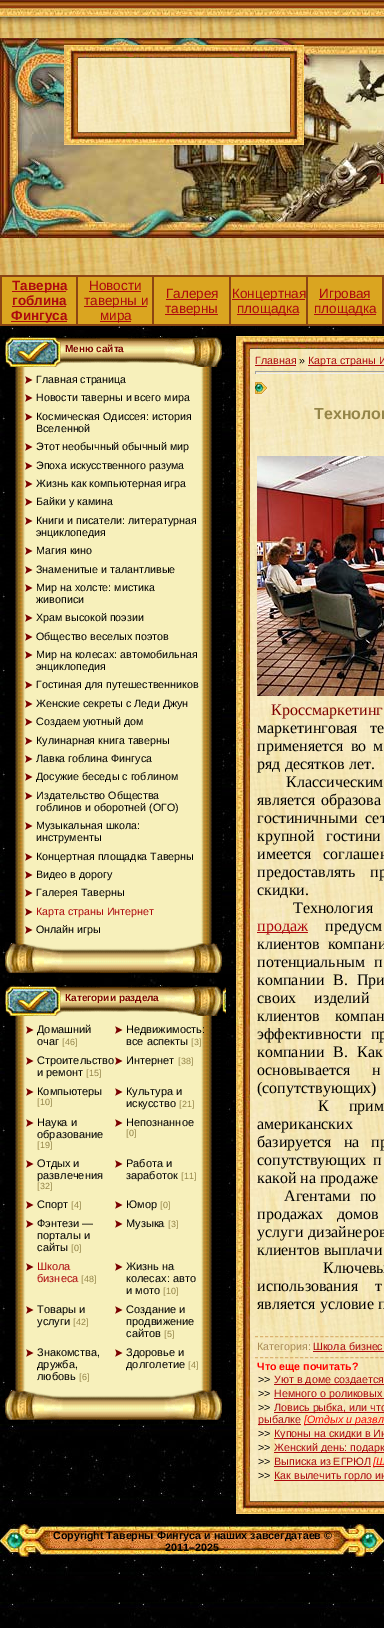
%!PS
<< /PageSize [384 1628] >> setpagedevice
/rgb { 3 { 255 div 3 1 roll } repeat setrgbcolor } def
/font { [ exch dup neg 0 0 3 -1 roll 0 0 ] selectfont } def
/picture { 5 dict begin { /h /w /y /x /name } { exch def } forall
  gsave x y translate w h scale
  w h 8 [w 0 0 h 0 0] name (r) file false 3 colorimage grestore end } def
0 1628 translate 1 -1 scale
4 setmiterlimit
255 255 255 rgb
0 0 384 1628 rectfill
(img/1.rgb) 0 326 384 1302 picture
(img/11.rgb) 0 0 384 275 picture
(img/12.rgb) 0 38 377 200 picture
(img/2.rgb) 64 45 14 13 picture
(img/3.rgb) 78 45 212 13 picture
(img/4.rgb) 290 45 14 13 picture
(img/5.rgb) 64 58 14 74 picture
(img/6.rgb) 78 58 212 74 picture
(img/7.rgb) 290 58 14 74 picture
(img/8.rgb) 64 132 14 13 picture
(img/9.rgb) 78 132 212 13 picture
(img/10.rgb) 290 132 14 13 picture
(img/13.rgb) 377 38 7 200 picture
[
  [2 277 380 47 218 165 32]
  [306 275 78 2 139 69 19]
  [382 275 2 51 139 69 19]
  [306 324 78 2 139 69 19]
  [306 275 2 51 139 69 19]
  [229 275 79 2 139 69 19]
  [229 324 79 2 139 69 19]
  [229 275 2 51 139 69 19]
  [152 275 79 2 139 69 19]
  [152 324 79 2 139 69 19]
  [152 275 2 51 139 69 19]
  [76 275 78 2 139 69 19]
  [76 324 78 2 139 69 19]
  [76 275 2 51 139 69 19]
  [0 275 78 2 139 69 19]
  [0 324 78 2 139 69 19]
  [0 275 2 51 139 69 19]
  [12 291 54 1 173 9 14]
  [12 306 54 1 173 9 14]
  [11 321 56 1 173 9 14]
  [89 291 52 1 173 9 14]
  [84 306 63 1 173 9 14]
  [100 321 31 1 173 9 14]
  [166 299 51 1 173 9 14]
  [165 314 53 1 173 9 14]
  [232 299 73 1 173 9 14]
  [237 314 62 1 173 9 14]
  [319 299 51 1 173 9 14]
  [314 314 62 1 173 9 14]
] { aload pop rgb rectfill } forall
(img/14.rgb) 5 368 217 574 picture
(img/15.rgb) 5 336 217 32 picture
(img/16.rgb) 25 376 8 8 picture
(img/17.rgb) 25 394 8 8 picture
(img/18.rgb) 25 413 8 8 picture
(img/19.rgb) 25 443 8 8 picture
(img/17.rgb) 25 462 8 8 picture
(img/16.rgb) 25 480 8 8 picture
(img/17.rgb) 25 498 8 8 picture
(img/18.rgb) 25 517 8 8 picture
(img/19.rgb) 25 547 8 8 picture
(img/17.rgb) 25 566 8 8 picture
(img/16.rgb) 25 584 8 8 picture
(img/17.rgb) 25 614 8 8 picture
(img/18.rgb) 25 633 8 8 picture
(img/19.rgb) 25 651 8 8 picture
(img/18.rgb) 25 681 8 8 picture
(img/16.rgb) 25 700 8 8 picture
(img/17.rgb) 25 718 8 8 picture
(img/18.rgb) 25 737 8 8 picture
(img/19.rgb) 25 755 8 8 picture
(img/18.rgb) 25 773 8 8 picture
(img/16.rgb) 25 792 8 8 picture
(img/17.rgb) 25 822 8 8 picture
(img/18.rgb) 25 853 8 8 picture
(img/19.rgb) 25 871 8 8 picture
(img/18.rgb) 25 889 8 8 picture
(img/16.rgb) 25 908 8 8 picture
(img/17.rgb) 25 926 8 8 picture
(img/20.rgb) 5 942 217 31 picture
(img/21.rgb) 5 1017 221 403 picture
(img/22.rgb) 5 985 221 32 picture
(img/23.rgb) 26 1026 8 8 picture
(img/23.rgb) 115 1026 8 8 picture
(img/23.rgb) 26 1057 8 8 picture
(img/23.rgb) 115 1057 8 8 picture
(img/23.rgb) 26 1088 8 8 picture
(img/23.rgb) 115 1088 8 8 picture
(img/23.rgb) 26 1119 8 8 picture
(img/23.rgb) 115 1119 8 8 picture
(img/23.rgb) 26 1160 8 8 picture
(img/23.rgb) 115 1160 8 8 picture
(img/23.rgb) 26 1201 8 8 picture
(img/23.rgb) 115 1201 8 8 picture
(img/23.rgb) 26 1220 8 8 picture
(img/23.rgb) 115 1220 8 8 picture
(img/23.rgb) 26 1263 8 8 picture
(img/23.rgb) 115 1263 8 8 picture
(img/23.rgb) 26 1306 8 8 picture
(img/23.rgb) 115 1306 8 8 picture
(img/23.rgb) 26 1349 8 8 picture
(img/23.rgb) 115 1349 8 8 picture
(img/20.rgb) 5 1389 217 31 picture
(img/2.rgb) 236 336 14 13 picture
(img/24.rgb) 250 336 134 13 picture
(img/25.rgb) 236 349 14 1152 picture
(img/26.rgb) 250 349 134 1152 picture
[
  [255 365 41 1 173 9 14]
  [308 365 76 1 173 9 14]
  [255 371 129 1 159 159 159]
  [255 373 129 1 238 238 238]
  [255 371 1 3 159 159 159]
] { aload pop rgb rectfill } forall
(img/27.rgb) 255 382 12 12 picture
(img/28.rgb) 257 456 127 240 picture
173 9 14 rgb
257 932 51 1 rectfill
219 178 112 rgb
[3 2.02] 0 setdash
255 1336.5 moveto 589 1336.5 lineto stroke
255 1357.5 moveto 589 1357.5 lineto stroke
[
  [313 1351 71 1 173 9 14]
  [274 1384 110 1 173 9 14]
  [274 1398 110 1 173 9 14]
  [274 1412 110 1 173 9 14]
  [258 1424 43 1 173 9 14]
  [304 1424 80 1 173 9 14]
  [274 1438 110 1 173 9 14]
  [274 1452 110 1 173 9 14]
  [274 1466 97 1 173 9 14]
  [373 1466 11 1 173 9 14]
  [274 1480 110 1 173 9 14]
] { aload pop rgb rectfill } forall
(img/8.rgb) 236 1501 14 13 picture
(img/29.rgb) 250 1501 134 13 picture
(img/30.rgb) 50 1524 284 33 picture
(img/31.rgb) 0 1524 50 33 picture
(img/32.rgb) 334 1524 50 33 picture
/LiberationSerif-Bold 16 font
121 0 0 rgb
377 184 moveto (Т) show
/LiberationSans-Bold 13.5 font
173 9 14 rgb
[
  [(Таверна) 12 290]
  [(гоблина) 12 305]
  [(Фингуса) 11 320]
] { aload pop moveto show } forall
/LiberationSans-Regular 13.5 font
[
  [(Новости) 89 290]
  [(таверны и) 84 305]
  [(мира) 100 320]
  [(Галерея) 166 298]
  [(таверны) 165 313]
  [(Концертная) 232 298]
  [(площадка) 237 313]
  [(Игровая) 319 298]
  [(площадка) 314 313]
] { aload pop moveto show } forall
/LiberationSans-Bold 10 font
121 0 0 rgb
65 352 moveto (Меню сайта) show
/LiberationSans-Regular 10.7 font
0 0 0 rgb
[
  [(Главная страница) 36 383]
  [(Новости таверны и всего мира) 36 401]
  [(Космическая Одиссея: история) 36 420]
  [(Вселенной) 36 432]
  [(Этот необычный обычный мир) 36 450]
  [(Эпоха искусственного разума) 36 469]
  [(Жизнь как компьютерная игра) 36 487]
  [(Байки у камина) 36 505]
  [(Книги и писатели: литературная) 36 524]
  [(энциклопедия) 36 536]
  [(Магия кино) 36 554]
  [(Знаменитые и талантливые) 36 573]
  [(Мир на холсте: мистика) 36 591]
  [(живописи) 36 603]
  [(Храм высокой поэзии) 36 621]
  [(Общество веселых поэтов) 36 640]
  [(Мир на колесах: автомобильная) 36 658]
  [(энциклопедия) 36 670]
  [(Гостиная для путешественников) 36 688]
  [(Женские секреты с Леди Джун) 36 707]
  [(Создаем уютный дом) 36 725]
  [(Кулинарная книга таверны) 36 744]
  [(Лавка гоблина Фингуса) 36 762]
  [(Досужие беседы с гоблином) 36 780]
  [(Издательство Общества) 36 799]
  [(гоблинов и оборотней \(ОГО\)) 36 811]
  [(Музыкальная школа:) 36 829]
  [(инструменты) 36 841]
  [(Концертная площадка Таверны) 36 860]
  [(Видео в дорогу) 36 878]
  [(Галерея Таверны) 36 896]
] { aload pop moveto show } forall
173 9 14 rgb
36 915 moveto (Карта страны Интернет) show
0 0 0 rgb
36 933 moveto (Онлайн игры) show
/LiberationSans-Bold 10 font
121 0 0 rgb
65 1001 moveto (Категории раздела) show
/LiberationSans-Regular 11 font
0 0 0 rgb
37 1033 moveto (Домашний) show
37 1045 moveto (очаг) show
/LiberationSans-Regular 9 font
148 133 73 rgb
62 1045 moveto ([46]) show
/LiberationSans-Regular 11 font
0 0 0 rgb
126 1033 moveto (Недвижимость:) show
126 1045 moveto (все аспекты) show
/LiberationSans-Regular 9 font
148 133 73 rgb
191 1045 moveto ([3]) show
/LiberationSans-Regular 11 font
0 0 0 rgb
37 1064 moveto (Строительство) show
37 1076 moveto (и ремонт) show
/LiberationSans-Regular 9 font
148 133 73 rgb
86 1076 moveto ([15]) show
/LiberationSans-Regular 11 font
0 0 0 rgb
126 1064 moveto (Интернет) show
/LiberationSans-Regular 9 font
148 133 73 rgb
178 1064 moveto ([38]) show
/LiberationSans-Regular 11 font
0 0 0 rgb
37 1095 moveto (Компьютеры) show
/LiberationSans-Regular 9 font
148 133 73 rgb
37 1105 moveto ([10]) show
/LiberationSans-Regular 11 font
0 0 0 rgb
126 1095 moveto (Культура и) show
126 1107 moveto (искусство) show
/LiberationSans-Regular 9 font
148 133 73 rgb
179 1107 moveto ([21]) show
/LiberationSans-Regular 11 font
0 0 0 rgb
37 1126 moveto (Наука и) show
37 1138 moveto (образование) show
/LiberationSans-Regular 9 font
148 133 73 rgb
37 1148 moveto ([19]) show
/LiberationSans-Regular 11 font
0 0 0 rgb
126 1126 moveto (Непознанное) show
/LiberationSans-Regular 9 font
148 133 73 rgb
126 1136 moveto ([0]) show
/LiberationSans-Regular 11 font
0 0 0 rgb
37 1167 moveto (Отдых и) show
37 1179 moveto (развлечения) show
/LiberationSans-Regular 9 font
148 133 73 rgb
37 1189 moveto ([32]) show
/LiberationSans-Regular 11 font
0 0 0 rgb
126 1167 moveto (Работа и) show
126 1179 moveto (заработок) show
/LiberationSans-Regular 9 font
148 133 73 rgb
181 1179 moveto ([11]) show
/LiberationSans-Regular 11 font
0 0 0 rgb
37 1208 moveto (Спорт) show
/LiberationSans-Regular 9 font
148 133 73 rgb
71 1208 moveto ([4]) show
/LiberationSans-Regular 11 font
0 0 0 rgb
126 1208 moveto (Юмор) show
/LiberationSans-Regular 9 font
148 133 73 rgb
160 1208 moveto ([0]) show
/LiberationSans-Regular 11 font
0 0 0 rgb
[
  [(Фэнтези —) 37 1227]
  [(порталы и) 37 1239]
  [(сайты) 37 1251]
] { aload pop moveto show } forall
/LiberationSans-Regular 9 font
148 133 73 rgb
71 1251 moveto ([0]) show
/LiberationSans-Regular 11 font
0 0 0 rgb
126 1227 moveto (Музыка) show
/LiberationSans-Regular 9 font
148 133 73 rgb
168 1227 moveto ([3]) show
/LiberationSans-Regular 11 font
173 9 14 rgb
37 1270 moveto (Школа) show
37 1282 moveto (бизнеса) show
/LiberationSans-Regular 9 font
148 133 73 rgb
81 1282 moveto ([48]) show
/LiberationSans-Regular 11 font
0 0 0 rgb
[
  [(Жизнь на) 126 1270]
  [(колесах: авто) 126 1282]
  [(и мото) 126 1294]
] { aload pop moveto show } forall
/LiberationSans-Regular 9 font
148 133 73 rgb
163 1294 moveto ([10]) show
/LiberationSans-Regular 11 font
0 0 0 rgb
37 1313 moveto (Товары и) show
37 1325 moveto (услуги) show
/LiberationSans-Regular 9 font
148 133 73 rgb
73 1325 moveto ([42]) show
/LiberationSans-Regular 11 font
0 0 0 rgb
[
  [(Создание и) 126 1313]
  [(продвижение) 126 1325]
  [(сайтов) 126 1337]
] { aload pop moveto show } forall
/LiberationSans-Regular 9 font
148 133 73 rgb
164 1337 moveto ([5]) show
/LiberationSans-Regular 11 font
0 0 0 rgb
[
  [(Знакомства,) 37 1356]
  [(дружба,) 37 1368]
  [(любовь) 37 1380]
] { aload pop moveto show } forall
/LiberationSans-Regular 9 font
148 133 73 rgb
79 1380 moveto ([6]) show
/LiberationSans-Regular 11 font
0 0 0 rgb
126 1356 moveto (Здоровье и) show
126 1368 moveto (долголетие) show
/LiberationSans-Regular 9 font
148 133 73 rgb
188 1368 moveto ([4]) show
/LiberationSans-Regular 10.7 font
173 9 14 rgb
255 364 moveto (Главная) show
0 0 0 rgb
299 364 moveto (») show
173 9 14 rgb
308 364 moveto (Карта страны И) show
/LiberationSans-Bold 16 font
148 133 73 rgb
314 419 moveto (Технолог) show
/LiberationSerif-Regular 16 font
128 0 0 rgb
271 715 moveto (Кроссмаркетинг) show
0 0 0 rgb
257 733 moveto 8 0 32 (маркетинговая те) widthshow
257 751 moveto 3 0 32 (применяется во м) widthshow
257 769 moveto (ряд десятков лет.) show
286 787 moveto 6 0 32 (Классическим) widthshow
257 805 moveto 1 0 32 (является образова) widthshow
257 823 moveto 4 0 32 (гостиничными сет) widthshow
257 841 moveto 8 0 32 (крупной гостини) widthshow
257 859 moveto 8 0 32 (имеется соглашен) widthshow
257 877 moveto 11 0 32 (предоставлять пр) widthshow
257 895 moveto (скидки.) show
293 913 moveto 8 0 32 (Технология) widthshow
173 9 14 rgb
257 931 moveto (продаж) show
0 0 0 rgb
325 931 moveto 13 0 32 (предусм) widthshow
257 949 moveto 4 0 32 (клиентов компани) widthshow
257 967 moveto 5 0 32 (потенциальным п) widthshow
257 985 moveto 5 0 32 (компании B. При) widthshow
257 1003 moveto 14 0 32 (своих изделий) widthshow
257 1021 moveto 11 0 32 (клиентов компан) widthshow
257 1039 moveto 5 0 32 (эффективности пр) widthshow
257 1057 moveto 5 0 32 (компании B. Как) widthshow
257 1075 moveto 18 0 32 (основывается н) widthshow
257 1093 moveto (\(сопутствующих\)) show
318 1111 moveto 16 0 32 (К прим) widthshow
257 1129 moveto 34 0 32 (американских) widthshow
257 1147 moveto 8 0 32 (базируется на пр) widthshow
257 1165 moveto 3 0 32 (сопутствующих п) widthshow
257 1183 moveto (какой на продаже) show
284 1201 moveto 5 0 32 (Агентами по) widthshow
257 1219 moveto 10 0 32 (продажах домов) widthshow
257 1237 moveto 1 0 32 (услуги дизайнеров) widthshow
257 1255 moveto (клиентов выплачи) show
323 1273 moveto 18 0 32 (Ключевы) widthshow
257 1291 moveto 13 0 32 (использования т) widthshow
257 1309 moveto (является условие п) show
/LiberationSans-Regular 10.7 font
168 137 86 rgb
257 1350 moveto (Категория:) show
173 9 14 rgb
313 1350 moveto (Школа бизнес) show
/LiberationSans-Bold 10.7 font
255 0 0 rgb
257 1370 moveto (Что еще почитать?) show
/LiberationSans-Regular 10.7 font
0 0 0 rgb
258 1383 moveto (>>) show
173 9 14 rgb
274 1383 moveto (Уют в доме создается) show
0 0 0 rgb
258 1397 moveto (>>) show
173 9 14 rgb
274 1397 moveto (Немного о роликовых) show
0 0 0 rgb
258 1411 moveto (>>) show
173 9 14 rgb
274 1411 moveto (Ловись рыбка, или что) show
258 1423 moveto (рыбалке) show
/LiberationSans-Italic 10.7 font
255 0 0 rgb
304 1423 moveto ([Отдых и развл) show
/LiberationSans-Regular 10.7 font
0 0 0 rgb
258 1437 moveto (>>) show
173 9 14 rgb
274 1437 moveto (Купоны на скидки в Ин) show
0 0 0 rgb
258 1451 moveto (>>) show
173 9 14 rgb
274 1451 moveto (Женский день: подарк) show
0 0 0 rgb
258 1465 moveto (>>) show
173 9 14 rgb
274 1465 moveto (Выписка из ЕГРЮЛ) show
/LiberationSans-Italic 10.7 font
255 0 0 rgb
373 1465 moveto ([Ш) show
/LiberationSans-Regular 10.7 font
0 0 0 rgb
258 1479 moveto (>>) show
173 9 14 rgb
274 1479 moveto (Как вылечить горло ин) show
/LiberationSans-Bold 10.7 font
0 0 0 rgb
53 1539 moveto (Copyright Таверны Фингуса и наших завсегдатаев ©) show
165 1551 moveto (2011–2025) show
showpage
